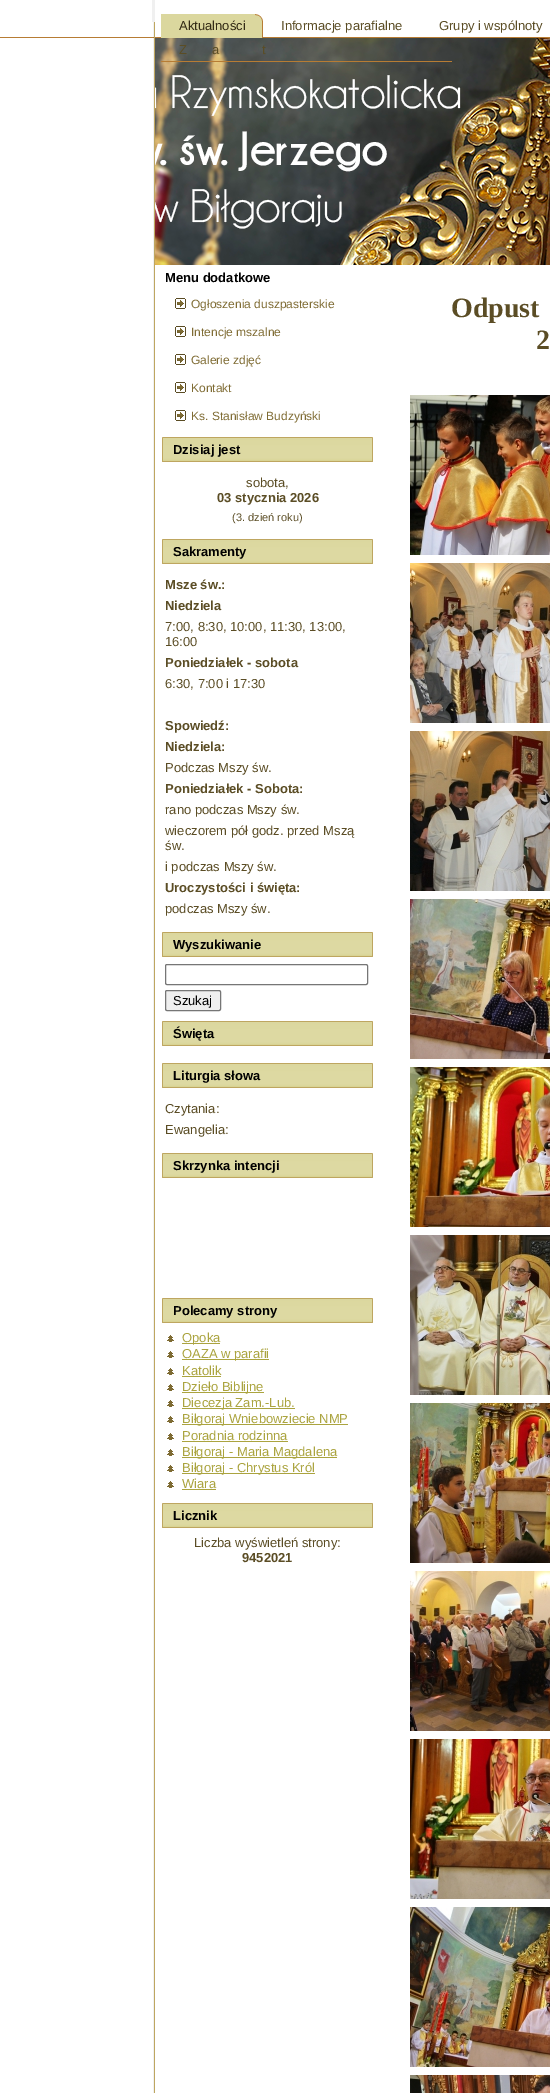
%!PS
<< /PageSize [550 2093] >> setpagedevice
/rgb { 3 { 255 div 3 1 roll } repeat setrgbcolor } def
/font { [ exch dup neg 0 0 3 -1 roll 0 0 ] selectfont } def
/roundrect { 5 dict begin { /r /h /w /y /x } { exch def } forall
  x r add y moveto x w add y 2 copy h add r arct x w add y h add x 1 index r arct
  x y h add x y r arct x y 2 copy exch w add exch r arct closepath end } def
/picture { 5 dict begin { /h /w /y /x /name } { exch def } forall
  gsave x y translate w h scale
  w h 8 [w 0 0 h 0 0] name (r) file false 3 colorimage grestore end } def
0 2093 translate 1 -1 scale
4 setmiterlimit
255 255 255 rgb
0 0 550 2093 rectfill
183 124 52 rgb
0 37 154 1 rectfill
240 240 240 rgb
152 0 3 22 rectfill
(img/1.rgb) 153 22 19 2071 picture
183 124 52 rgb
155 37 395 1 rectfill
219 215 158 rgb
161 14 94 24 rectfill
(img/2.rgb) 255 14 8 24 picture
(img/3.rgb) 155 38 395 227 picture
183 124 52 rgb
161 61 291 1 rectfill
(img/4.rgb) 175 298 11 11 picture
(img/4.rgb) 175 326 11 11 picture
(img/4.rgb) 175 354 11 11 picture
(img/4.rgb) 175 382 11 11 picture
(img/4.rgb) 175 410 11 11 picture
(img/5.rgb) 162 437 210 25 picture
(img/6.rgb) 372 437 1 25 picture
(img/5.rgb) 162 539 210 25 picture
(img/6.rgb) 372 539 1 25 picture
(img/5.rgb) 162 932 210 25 picture
(img/6.rgb) 372 932 1 25 picture
118 118 118 rgb
165.5 964.5 202 20 1.5 roundrect stroke
239 239 239 rgb
165.5 990.5 55 20 1.5 roundrect gsave fill grestore
118 118 118 rgb
stroke
(img/5.rgb) 162 1021 210 25 picture
(img/6.rgb) 372 1021 1 25 picture
(img/5.rgb) 162 1063 210 25 picture
(img/6.rgb) 372 1063 1 25 picture
(img/5.rgb) 162 1153 210 25 picture
(img/6.rgb) 372 1153 1 25 picture
(img/5.rgb) 162 1298 210 25 picture
(img/6.rgb) 372 1298 1 25 picture
(img/7.rgb) 167 1335 7 7 picture
171 164 63 rgb
182 1343 38 1 rectfill
(img/7.rgb) 167 1351 7 7 picture
182 1359 87 1 rectfill
(img/7.rgb) 167 1368 7 7 picture
182 1376 39 1 rectfill
(img/7.rgb) 167 1384 7 7 picture
182 1392 82 1 rectfill
(img/7.rgb) 167 1400 7 7 picture
182 1408 113 1 rectfill
(img/7.rgb) 167 1416 7 7 picture
182 1424 166 1 rectfill
(img/7.rgb) 167 1433 7 7 picture
182 1441 106 1 rectfill
(img/7.rgb) 167 1449 7 7 picture
182 1457 155 1 rectfill
(img/7.rgb) 167 1465 7 7 picture
182 1473 133 1 rectfill
(img/7.rgb) 167 1481 7 7 picture
182 1489 34 1 rectfill
(img/5.rgb) 162 1503 210 25 picture
(img/6.rgb) 372 1503 1 25 picture
(img/8.rgb) 410 395 140 160 picture
(img/9.rgb) 410 563 140 160 picture
(img/10.rgb) 410 731 140 160 picture
(img/11.rgb) 410 899 140 160 picture
(img/12.rgb) 410 1067 140 160 picture
(img/13.rgb) 410 1235 140 160 picture
(img/14.rgb) 410 1403 140 160 picture
(img/15.rgb) 410 1571 140 160 picture
(img/16.rgb) 410 1739 140 160 picture
(img/17.rgb) 410 1907 140 160 picture
(img/18.rgb) 410 2075 140 18 picture
/LiberationSans-Regular 13 font
51 43 21 rgb
179 30 moveto (Aktualności) show
91 77 37 rgb
[
  [(Informacje parafialne) 281 30]
  [(Grupy i wspólnoty) 439 30]
  [(Z) 179 54]
  [(a) 212 54]
  [(t) 262 54]
] { aload pop moveto show } forall
/LiberationSans-Bold 13 font
0 0 0 rgb
165 282 moveto (Menu dodatkowe) show
/LiberationSans-Regular 12 font
127 108 52 rgb
[
  [(Ogłoszenia duszpasterskie) 191 308]
  [(Intencje mszalne) 191 336]
  [(Galerie zdjęć) 191 364]
  [(Kontakt) 191 392]
  [(Ks. Stanisław Budzyński) 191 420]
] { aload pop moveto show } forall
/LiberationSans-Bold 13 font
0 0 0 rgb
173 454 moveto (Dzisiaj jest) show
/LiberationSans-Regular 13 font
91 77 37 rgb
246 487 moveto (sobota,) show
/LiberationSans-Bold 13 font
217 502 moveto (03 stycznia 2026) show
/LiberationSans-Regular 11 font
232 521 moveto (\(3. dzień roku\)) show
/LiberationSans-Bold 13 font
0 0 0 rgb
173 556 moveto (Sakramenty) show
91 77 37 rgb
165 589 moveto (Msze św.:) show
165 610 moveto (Niedziela) show
/LiberationSans-Regular 13 font
165 631 moveto (7:00, 8:30, 10:00, 11:30, 13:00,) show
165 646 moveto (16:00) show
/LiberationSans-Bold 13 font
165 667 moveto (Poniedziałek - sobota) show
/LiberationSans-Regular 13 font
165 688 moveto (6:30, 7:00 i 17:30) show
/LiberationSans-Bold 13 font
165 730 moveto (Spowiedź:) show
165 751 moveto (Niedziela:) show
/LiberationSans-Regular 13 font
165 772 moveto (Podczas Mszy św.) show
/LiberationSans-Bold 13 font
165 793 moveto (Poniedziałek - Sobota:) show
/LiberationSans-Regular 13 font
[
  [(rano podczas Mszy św.) 165 814]
  [(wieczorem pół godz. przed Mszą) 165 835]
  [(św.) 165 850]
  [(i podczas Mszy św.) 165 871]
] { aload pop moveto show } forall
/LiberationSans-Bold 13 font
165 892 moveto (Uroczystości i święta:) show
/LiberationSans-Regular 13 font
165 913 moveto (podczas Mszy św.) show
/LiberationSans-Bold 13 font
0 0 0 rgb
173 949 moveto (Wyszukiwanie) show
/LiberationSans-Regular 13 font
173 1005 moveto (Szukaj) show
/LiberationSans-Bold 13 font
173 1038 moveto (Święta) show
173 1080 moveto (Liturgia słowa) show
/LiberationSans-Regular 13 font
91 77 37 rgb
165 1113 moveto (Czytania:) show
165 1134 moveto (Ewangelia:) show
/LiberationSans-Bold 13 font
0 0 0 rgb
173 1170 moveto (Skrzynka intencji) show
173 1315 moveto (Polecamy strony) show
/LiberationSans-Regular 13 font
171 164 63 rgb
[
  [(Opoka) 182 1342]
  [(OAZA w parafii) 182 1358]
  [(Katolik) 182 1375]
  [(Dzieło Biblijne) 182 1391]
  [(Diecezja Zam.-Lub.) 182 1407]
  [(Biłgoraj Wniebowziecie NMP) 182 1423]
  [(Poradnia rodzinna) 182 1440]
  [(Biłgoraj - Maria Magdalena) 182 1456]
  [(Biłgoraj - Chrystus Król) 182 1472]
  [(Wiara) 182 1488]
] { aload pop moveto show } forall
/LiberationSans-Bold 13 font
0 0 0 rgb
173 1520 moveto (Licznik) show
/LiberationSans-Regular 13 font
91 77 37 rgb
194 1547 moveto (Liczba wyświetleń strony:) show
/LiberationSans-Bold 13 font
242 1562 moveto (9452021) show
/LiberationSerif-Bold 28 font
451 317 moveto (Odpust) show
536 349 moveto (2) show
showpage
